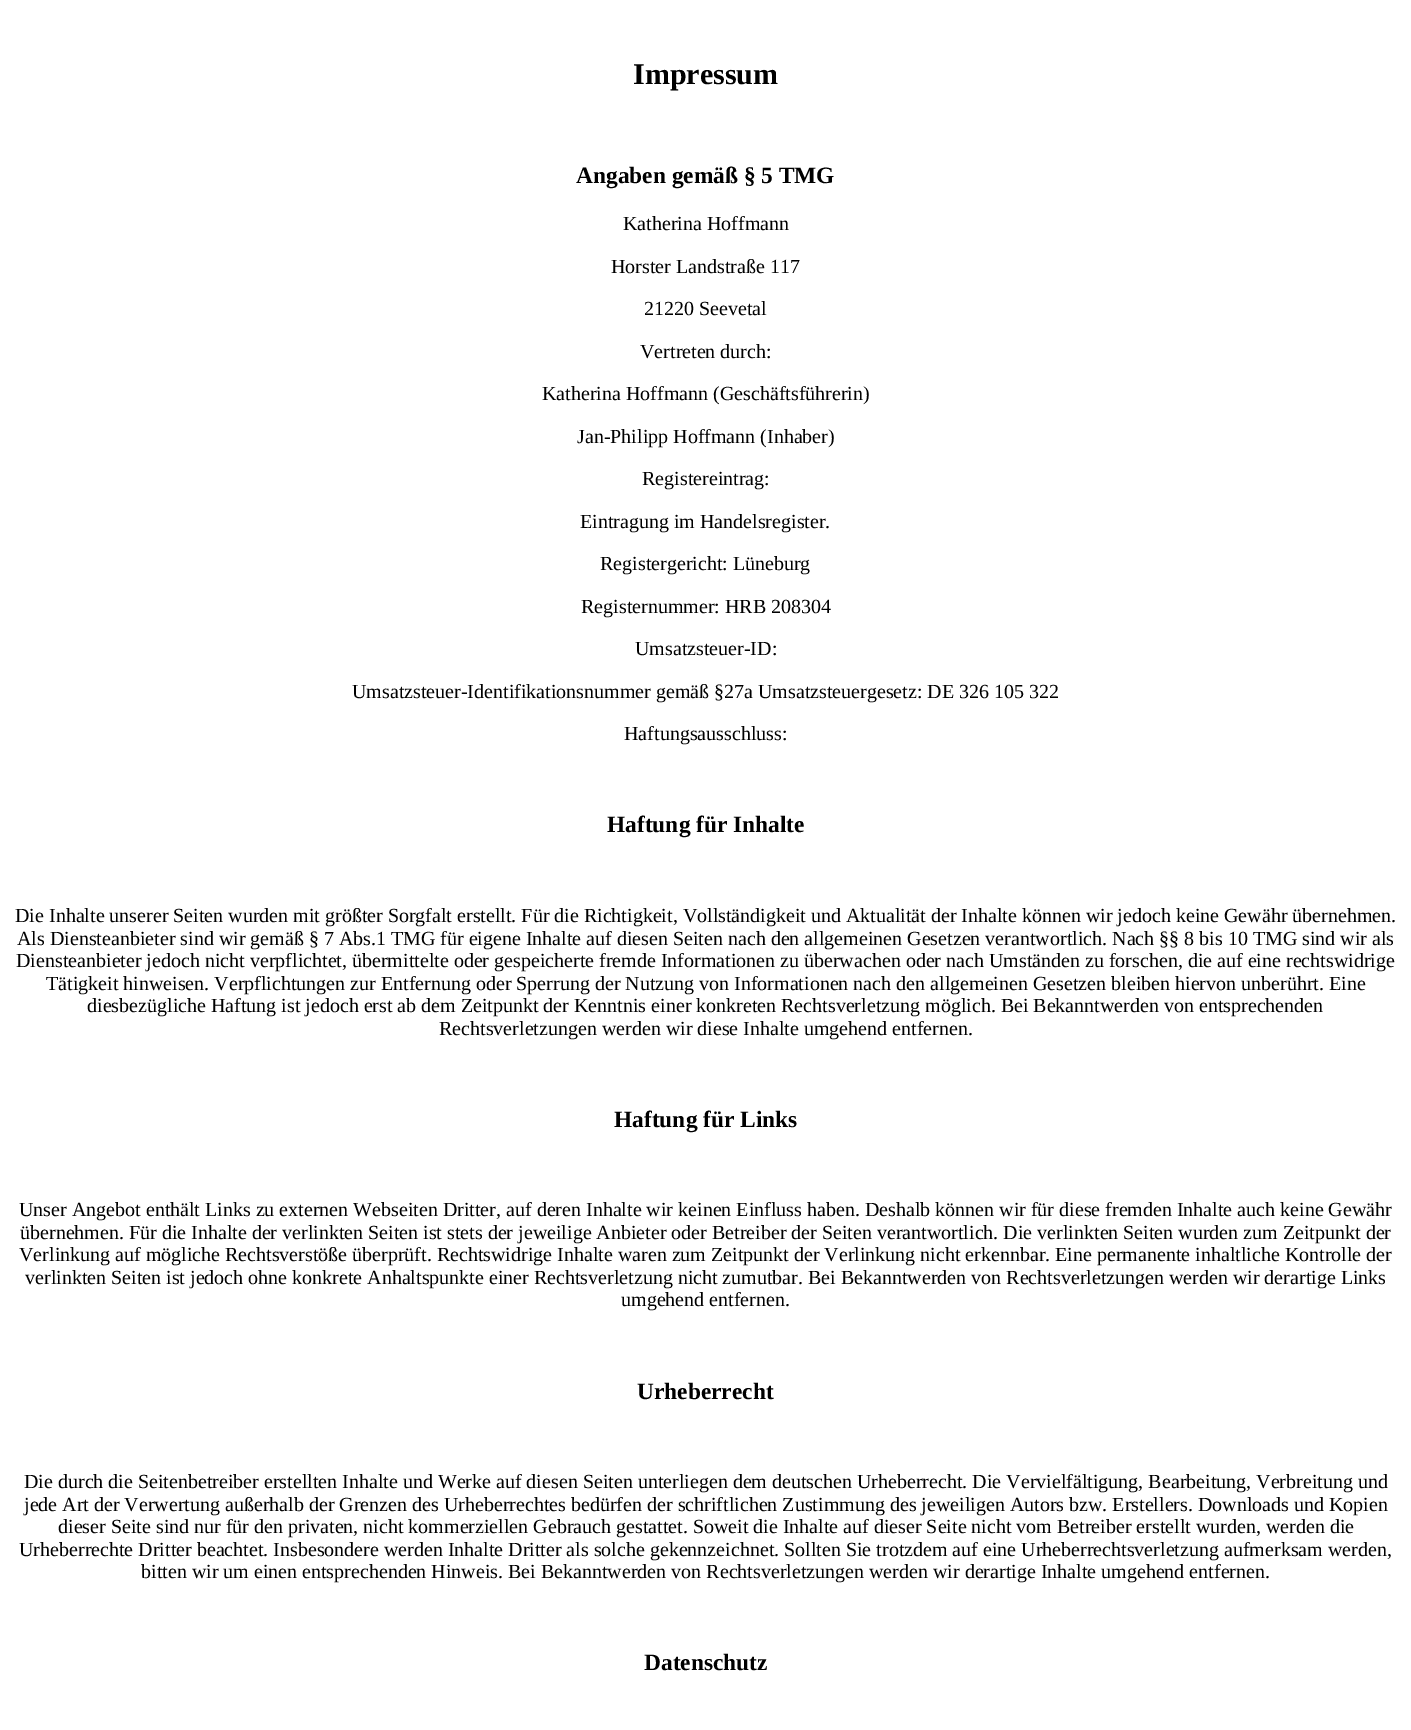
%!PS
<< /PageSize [1411 1730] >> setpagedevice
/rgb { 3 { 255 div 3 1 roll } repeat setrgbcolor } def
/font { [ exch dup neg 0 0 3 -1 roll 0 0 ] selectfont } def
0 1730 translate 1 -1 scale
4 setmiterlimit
255 255 255 rgb
0 0 1411 1730 rectfill
/LiberationSerif-Bold 30 font
0 0 0 rgb
633 84 moveto (Impressum) show
/LiberationSerif-Bold 23.4 font
576 183 moveto (Angaben gemäß § 5 TMG) show
/LiberationSerif-Regular 20 font
[
  [(Katherina Hoffmann) 623 230]
  [(Horster Landstraße 117) 611 273]
  [(21220 Seevetal) 644 315]
  [(Vertreten durch:) 640 358]
  [(Katherina Hoffmann \(Geschäftsführerin\)) 542 400]
  [(Jan-Philipp Hoffmann \(Inhaber\)) 577 443]
  [(Registereintrag:) 642 485]
  [(Eintragung im Handelsregister.) 580 528]
  [(Registergericht: Lüneburg) 600 570]
  [(Registernummer: HRB 208304) 581 613]
  [(Umsatzsteuer-ID:) 635 655]
  [(Umsatzsteuer-Identifikationsnummer gemäß §27a Umsatzsteuergesetz: DE 326 105 322) 352 698]
  [(Haftungsausschluss:) 624 740]
] { aload pop moveto show } forall
/LiberationSerif-Bold 23.4 font
607 832 moveto (Haftung für Inhalte) show
/LiberationSerif-Regular 20 font
[
  [(Die Inhalte unserer Seiten wurden mit größter Sorgfalt erstellt. Für die Richtigkeit, Vollständigkeit und Aktualität der Inhalte können wir jedoch keine Gewähr übernehmen.) 15 922]
  [(Als Diensteanbieter sind wir gemäß § 7 Abs.1 TMG für eigene Inhalte auf diesen Seiten nach den allgemeinen Gesetzen verantwortlich. Nach §§ 8 bis 10 TMG sind wir als) 17 945]
  [(Diensteanbieter jedoch nicht verpflichtet, übermittelte oder gespeicherte fremde Informationen zu überwachen oder nach Umständen zu forschen, die auf eine rechtswidrige) 16 967]
  [(Tätigkeit hinweisen. Verpflichtungen zur Entfernung oder Sperrung der Nutzung von Informationen nach den allgemeinen Gesetzen bleiben hiervon unberührt. Eine) 46 990]
  [(diesbezügliche Haftung ist jedoch erst ab dem Zeitpunkt der Kenntnis einer konkreten Rechtsverletzung möglich. Bei Bekanntwerden von entsprechenden) 87 1012]
  [(Rechtsverletzungen werden wir diese Inhalte umgehend entfernen.) 439 1035]
] { aload pop moveto show } forall
/LiberationSerif-Bold 23.4 font
614 1127 moveto (Haftung für Links) show
/LiberationSerif-Regular 20 font
[
  [(Unser Angebot enthält Links zu externen Webseiten Dritter, auf deren Inhalte wir keinen Einfluss haben. Deshalb können wir für diese fremden Inhalte auch keine Gewähr) 19 1216]
  [(übernehmen. Für die Inhalte der verlinkten Seiten ist stets der jeweilige Anbieter oder Betreiber der Seiten verantwortlich. Die verlinkten Seiten wurden zum Zeitpunkt der) 20 1239]
  [(Verlinkung auf mögliche Rechtsverstöße überprüft. Rechtswidrige Inhalte waren zum Zeitpunkt der Verlinkung nicht erkennbar. Eine permanente inhaltliche Kontrolle der) 19 1261]
  [(verlinkten Seiten ist jedoch ohne konkrete Anhaltspunkte einer Rechtsverletzung nicht zumutbar. Bei Bekanntwerden von Rechtsverletzungen werden wir derartige Links) 25 1284]
  [(umgehend entfernen.) 621 1306]
] { aload pop moveto show } forall
/LiberationSerif-Bold 23.4 font
637 1399 moveto (Urheberrecht) show
/LiberationSerif-Regular 20 font
[
  [(Die durch die Seitenbetreiber erstellten Inhalte und Werke auf diesen Seiten unterliegen dem deutschen Urheberrecht. Die Vervielfältigung, Bearbeitung, Verbreitung und) 24 1488]
  [(jede Art der Verwertung außerhalb der Grenzen des Urheberrechtes bedürfen der schriftlichen Zustimmung des jeweiligen Autors bzw. Erstellers. Downloads und Kopien) 24 1511]
  [(dieser Seite sind nur für den privaten, nicht kommerziellen Gebrauch gestattet. Soweit die Inhalte auf dieser Seite nicht vom Betreiber erstellt wurden, werden die) 58 1533]
  [(Urheberrechte Dritter beachtet. Insbesondere werden Inhalte Dritter als solche gekennzeichnet. Sollten Sie trotzdem auf eine Urheberrechtsverletzung aufmerksam werden,) 19 1556]
  [(bitten wir um einen entsprechenden Hinweis. Bei Bekanntwerden von Rechtsverletzungen werden wir derartige Inhalte umgehend entfernen.) 141 1578]
] { aload pop moveto show } forall
/LiberationSerif-Bold 23.4 font
644 1670 moveto (Datenschutz) show
showpage
